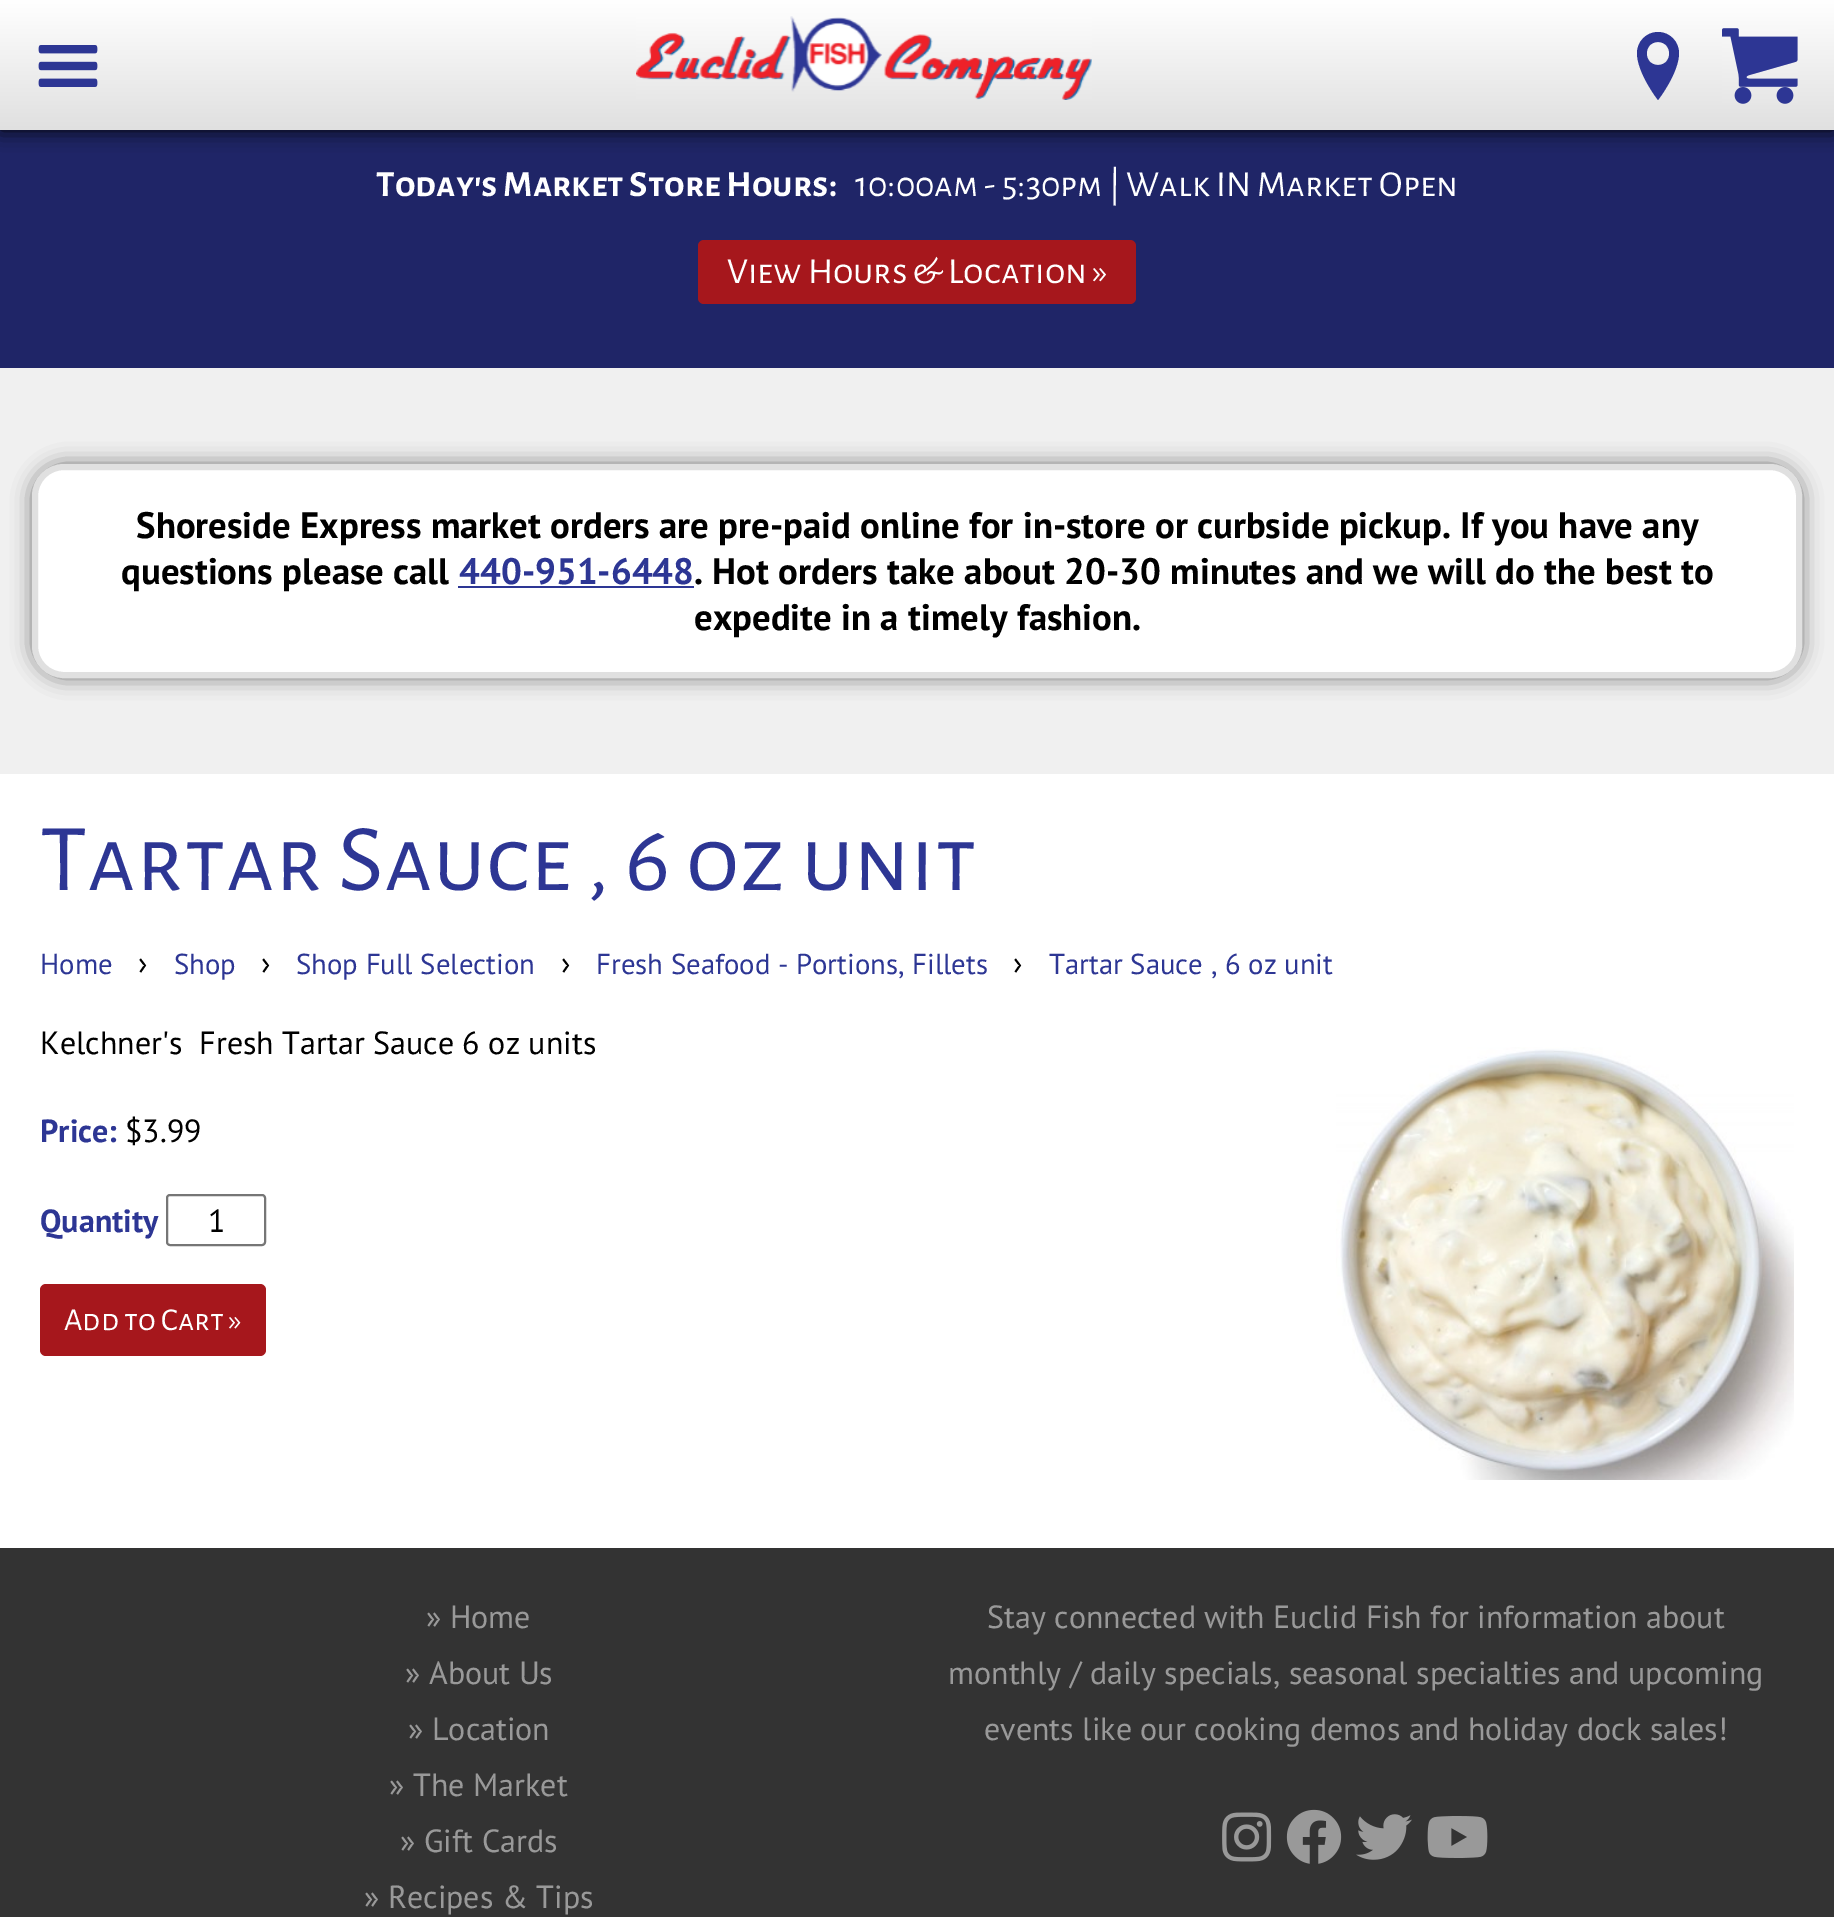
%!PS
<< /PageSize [1834 1917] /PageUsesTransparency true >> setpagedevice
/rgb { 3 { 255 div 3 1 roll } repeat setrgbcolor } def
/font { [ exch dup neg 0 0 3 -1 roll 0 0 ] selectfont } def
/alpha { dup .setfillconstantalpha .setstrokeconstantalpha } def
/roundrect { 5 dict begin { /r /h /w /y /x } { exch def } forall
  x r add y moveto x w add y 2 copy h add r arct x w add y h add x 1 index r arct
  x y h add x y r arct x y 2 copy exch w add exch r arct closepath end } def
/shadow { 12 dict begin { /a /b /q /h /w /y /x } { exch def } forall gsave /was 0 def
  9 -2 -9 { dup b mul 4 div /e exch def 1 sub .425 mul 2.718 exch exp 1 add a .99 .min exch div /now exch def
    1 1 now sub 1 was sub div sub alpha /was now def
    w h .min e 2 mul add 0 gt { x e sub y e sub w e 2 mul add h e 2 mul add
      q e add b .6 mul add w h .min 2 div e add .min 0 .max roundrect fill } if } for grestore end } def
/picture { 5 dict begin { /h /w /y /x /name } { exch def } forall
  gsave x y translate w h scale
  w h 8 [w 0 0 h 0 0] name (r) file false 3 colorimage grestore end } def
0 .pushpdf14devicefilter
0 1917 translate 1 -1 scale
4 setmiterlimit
51 51 51 rgb
0 0 1834 1917 rectfill
31 37 103 rgb
0 130 1834 238 rectfill
0 0 0 rgb
0 0 1834 130 0 10 1 shadow
gsave 0 0 moveto 1834 0 lineto 1834 130 lineto 0 130 lineto closepath clip newpath
<< /ShadingType 2 /ColorSpace /DeviceRGB /Coords [917 0 917 130] /Extend [true true] /Function << /FunctionType 2 /Domain [0 1] /C0 [1 1 1] /C1 [0.878 0.878 0.878] /N 1 >> >> shfill grestore
(img/1.rgb) 38 45 60 42 picture
(img/2.rgb) 636 16 456 84 picture
45 54 148 rgb
1658 32 moveto 1646 32 1637 42 1637 53 curveto 1637 73 1658 100 1658 100 curveto 1658 100 1679 73 1679 53 curveto 1679 42 1670 32 1658 32 curveto closepath 1658 65 moveto 1643 65 1643 42 1658 42 curveto 1673 42 1673 65 1658 65 curveto closepath fill
(img/3.rgb) 1722 28 76 76 picture
166 23 28 rgb
698 240 438 64 6 roundrect fill
240 240 240 rgb
0 368 1834 406 rectfill
0 0 0 rgb
32 464 1770 214 32 10 0.5 shadow
255 255 255 rgb
35 467 1764 208 29 roundrect gsave fill grestore
224 224 224 rgb
6 setlinewidth
stroke
45 54 148 rgb
458 586 236 2 rectfill
255 255 255 rgb
0 774 1834 774 rectfill
118 118 118 rgb
2 setlinewidth
167 1195 98 50 3 roundrect stroke
166 23 28 rgb
40 1284 226 72 6 roundrect fill
(img/4.rgb) 1336 1047 458 433 picture
(img/5.rgb) 1222 1812 50 50 picture
(img/6.rgb) 1286 1809 56 55 picture
(img/7.rgb) 1356 1814 56 46 picture
(img/8.rgb) 1427 1816 61 42 picture
/AlegreyaSansSC-Bold 36.8 font
255 255 255 rgb
376 196 moveto (Today's Market Store Hours:) show
/AlegreyaSansSC-Regular 36.8 font
855 196 moveto (10:00am - 5:30pm | Walk IN Market Open) show
727 283 moveto (View Hours & Location ») show
/PTSans-Bold 36.8 font
0 0 0 rgb
[
  [(Shoreside Express market orders are pre-paid online for in-store) 136 538]
  [(or curbside pickup. If you have any) 1155 538]
  [(questions please call) 121 584]
] { aload pop moveto show } forall
45 54 148 rgb
459 584 moveto (440-951-6448) show
0 0 0 rgb
694 584 moveto (. Hot orders take about 20-30 minutes and we will do the best to) show
694 630 moveto (expedite in a timely fashion.) show
/AlegreyaSansSC-Regular 96 font
45 54 148 rgb
40 890 moveto (Tartar Sauce , 6 oz unit) show
/PTSans-Regular 28.75 font
40 974 moveto (Home) show
/PTSans-Regular 32 font
0 0 0 rgb
138 974 moveto (›) show
/PTSans-Regular 28.75 font
45 54 148 rgb
174 974 moveto (Shop) show
/PTSans-Regular 32 font
0 0 0 rgb
261 974 moveto (›) show
/PTSans-Regular 28.75 font
45 54 148 rgb
296 974 moveto (Shop Full Selection) show
/PTSans-Regular 32 font
0 0 0 rgb
561 974 moveto (›) show
/PTSans-Regular 28.75 font
45 54 148 rgb
596 974 moveto (Fresh Seafood - Portions, Fillets) show
/PTSans-Regular 32 font
0 0 0 rgb
1013 974 moveto (›) show
/PTSans-Regular 28.75 font
45 54 148 rgb
1049 974 moveto (Tartar Sauce , 6 oz unit) show
/PTSans-Regular 32 font
0 0 0 rgb
40 1054 moveto (Kelchner's  Fresh Tartar Sauce 6 oz units) show
/PTSans-Bold 32 font
45 54 148 rgb
40 1142 moveto (Price:) show
/PTSans-Regular 32 font
0 0 0 rgb
125 1142 moveto ($3.99) show
/PTSans-Bold 32 font
45 54 148 rgb
40 1232 moveto (Quantity) show
/PTSans-Regular 32 font
0 0 0 rgb
208 1232 moveto (1) show
/AlegreyaSansSC-Regular 32 font
255 255 255 rgb
64 1330 moveto (Add to Cart ») show
/PTSans-Regular 32 font
153 153 153 rgb
[
  [(» Home) 426 1628]
  [(» About Us) 405 1684]
  [(» Location) 408 1740]
  [(» The Market) 389 1796]
  [(» Gift Cards) 400 1852]
  [(» Recipes & Tips) 364 1908]
  [(Stay connected with Euclid Fish for information about) 987 1628]
  [(monthly / daily specials, seasonal specialties and upcoming) 948 1684]
  [(events like our cooking demos and holiday dock sales!) 984 1740]
] { aload pop moveto show } forall
.poppdf14devicefilter showpage
